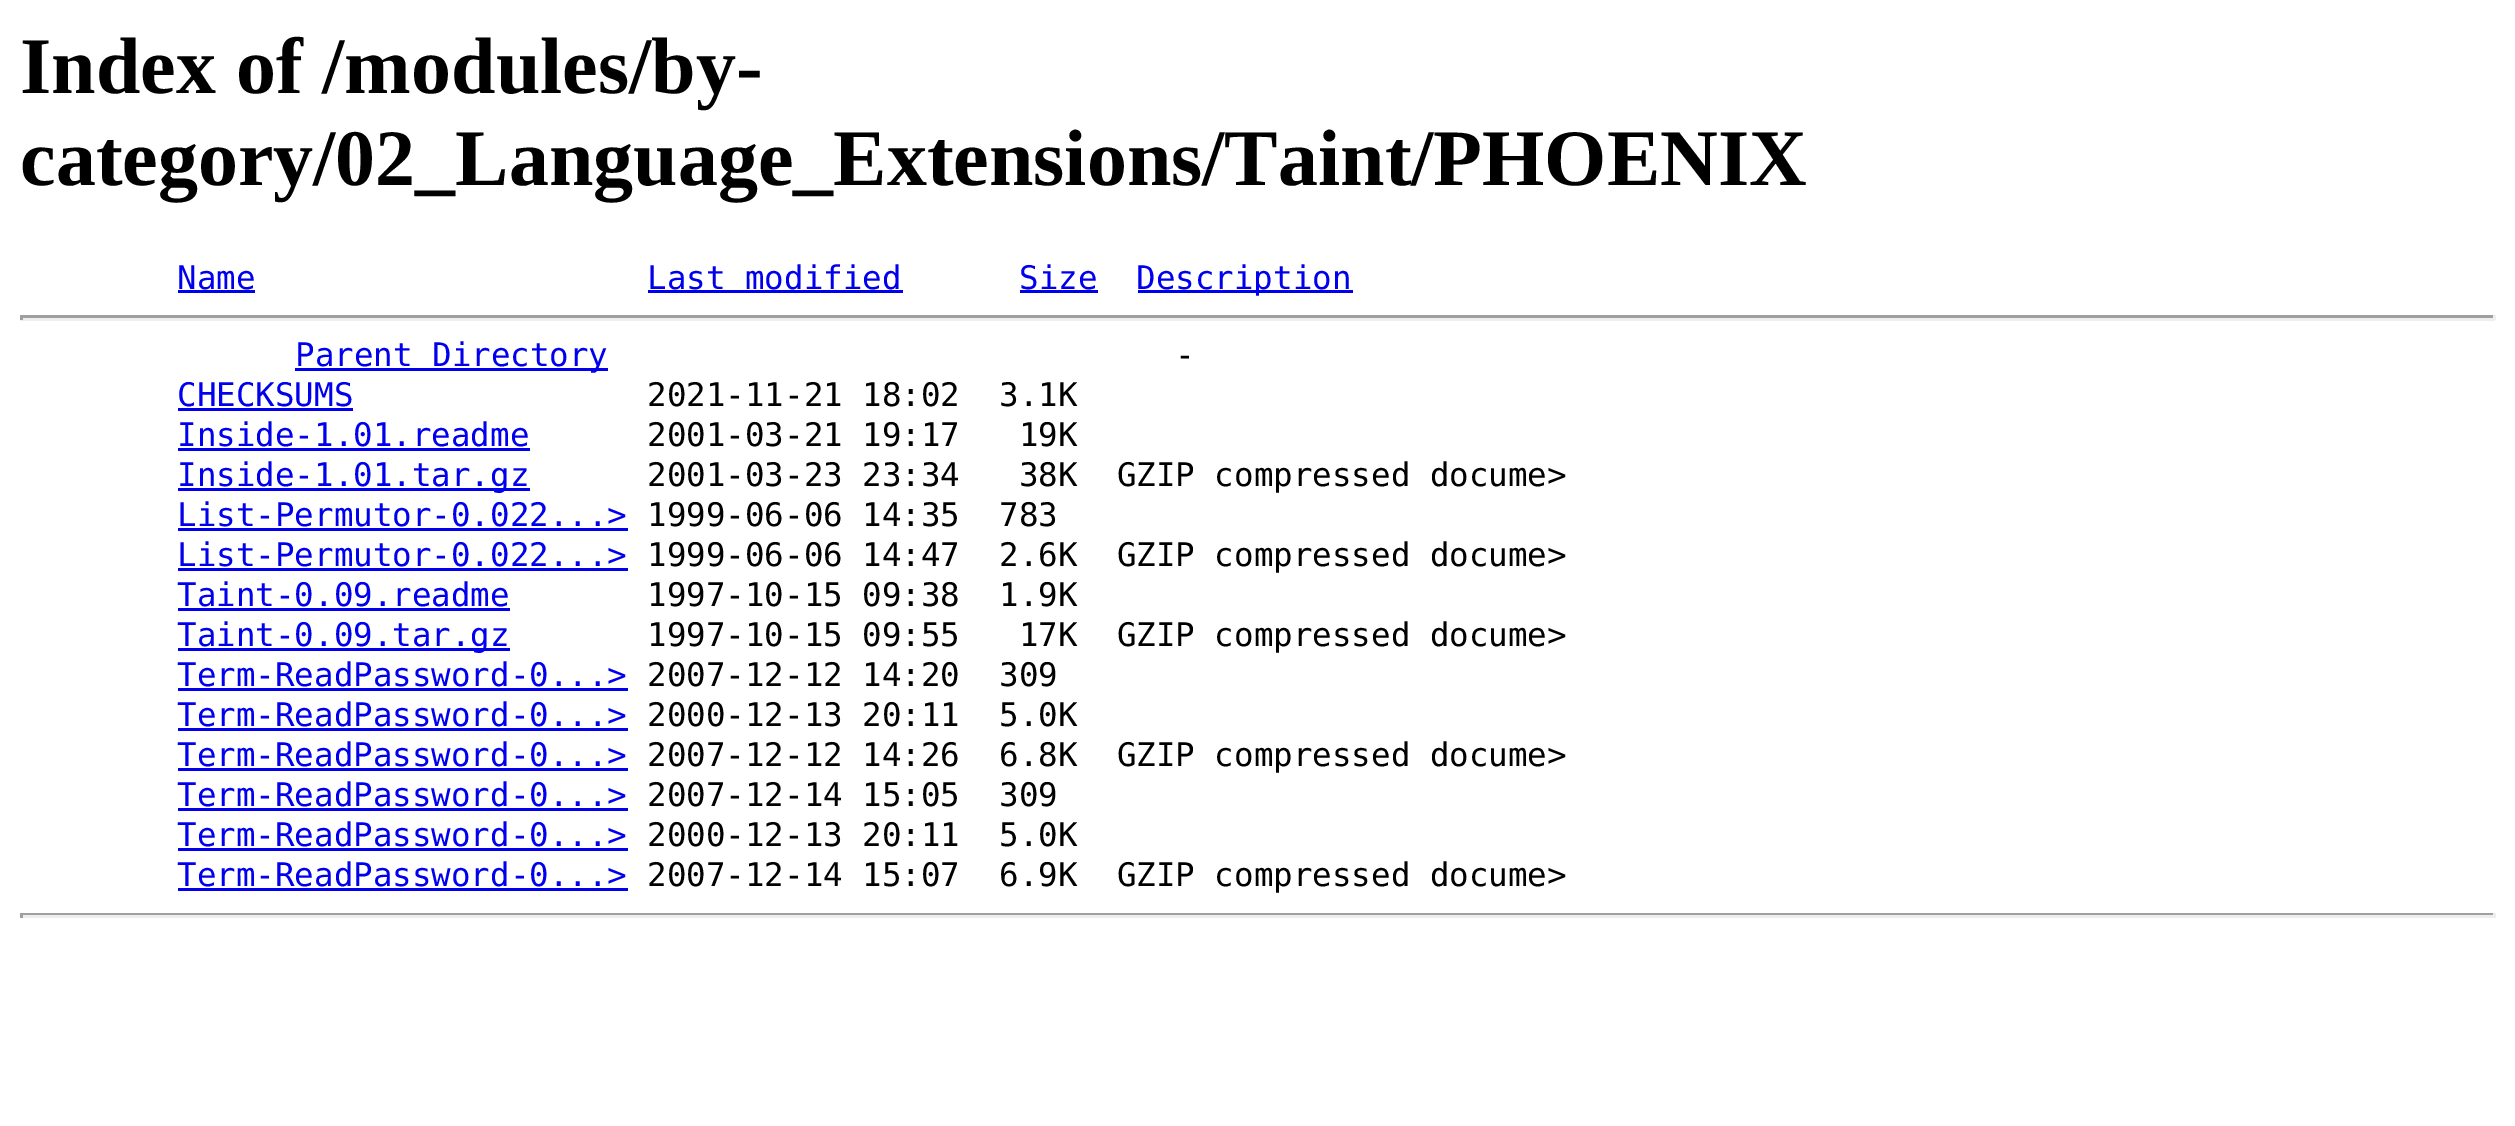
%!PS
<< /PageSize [2515 1126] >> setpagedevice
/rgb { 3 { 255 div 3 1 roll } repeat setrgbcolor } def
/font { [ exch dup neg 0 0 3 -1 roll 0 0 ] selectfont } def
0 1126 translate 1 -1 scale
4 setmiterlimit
255 255 255 rgb
0 0 2515 1126 rectfill
[
  [178 290 77 3 0 0 238]
  [648 290 255 3 0 0 238]
  [1020 290 78 3 0 0 238]
  [1138 290 215 3 0 0 238]
  [20 315 2475 3 159 159 159]
  [2493 315 3 5 238 238 238]
  [20 318 2475 3 238 238 238]
  [20 315 3 5 159 159 159]
  [295 368 313 3 0 0 238]
  [178 408 175 3 0 0 238]
  [178 448 352 3 0 0 238]
  [178 488 352 3 0 0 238]
  [178 528 450 3 0 0 238]
  [178 568 450 3 0 0 238]
  [178 608 332 3 0 0 238]
  [178 648 332 3 0 0 238]
  [178 688 450 3 0 0 238]
  [178 728 450 3 0 0 238]
  [178 768 450 3 0 0 238]
  [178 808 450 3 0 0 238]
  [178 848 450 3 0 0 238]
  [178 888 450 3 0 0 238]
  [20 913 2475 2 159 159 159]
  [2493 913 3 5 238 238 238]
  [20 915 2475 3 238 238 238]
  [20 913 3 5 159 159 159]
] { aload pop rgb rectfill } forall
/LiberationSerif-Bold 80 font
0 0 0 rgb
20 93 moveto (Index of /modules/by-) show
20 185 moveto (category/02_Language_Extensions/Taint/PHOENIX) show
/DejaVuSansMono-Regular 32.5 font
0 0 238 rgb
[
  [(Name) 177 289]
  [(Last modified) 647 289]
  [(Size) 1019 289]
  [(Description) 1136 289]
  [(Parent Directory) 295 366]
] { aload pop moveto show } forall
0 0 0 rgb
1175 366 moveto (-) show
0 0 238 rgb
177 406 moveto (CHECKSUMS) show
0 0 0 rgb
647 406 moveto (2021-11-21 18:02  3.1K) show
0 0 238 rgb
177 446 moveto (Inside-1.01.readme) show
0 0 0 rgb
647 446 moveto (2001-03-21 19:17   19K) show
0 0 238 rgb
177 486 moveto (Inside-1.01.tar.gz) show
0 0 0 rgb
647 486 moveto (2001-03-23 23:34   38K  GZIP compressed docume>) show
0 0 238 rgb
177 526 moveto (List-Permutor-0.022...>) show
0 0 0 rgb
647 526 moveto (1999-06-06 14:35  783) show
0 0 238 rgb
177 566 moveto (List-Permutor-0.022...>) show
0 0 0 rgb
647 566 moveto (1999-06-06 14:47  2.6K  GZIP compressed docume>) show
0 0 238 rgb
177 606 moveto (Taint-0.09.readme) show
0 0 0 rgb
647 606 moveto (1997-10-15 09:38  1.9K) show
0 0 238 rgb
177 646 moveto (Taint-0.09.tar.gz) show
0 0 0 rgb
647 646 moveto (1997-10-15 09:55   17K  GZIP compressed docume>) show
0 0 238 rgb
177 686 moveto (Term-ReadPassword-0...>) show
0 0 0 rgb
647 686 moveto (2007-12-12 14:20  309) show
0 0 238 rgb
177 726 moveto (Term-ReadPassword-0...>) show
0 0 0 rgb
647 726 moveto (2000-12-13 20:11  5.0K) show
0 0 238 rgb
177 766 moveto (Term-ReadPassword-0...>) show
0 0 0 rgb
647 766 moveto (2007-12-12 14:26  6.8K  GZIP compressed docume>) show
0 0 238 rgb
177 806 moveto (Term-ReadPassword-0...>) show
0 0 0 rgb
647 806 moveto (2007-12-14 15:05  309) show
0 0 238 rgb
177 846 moveto (Term-ReadPassword-0...>) show
0 0 0 rgb
647 846 moveto (2000-12-13 20:11  5.0K) show
0 0 238 rgb
177 886 moveto (Term-ReadPassword-0...>) show
0 0 0 rgb
647 886 moveto (2007-12-14 15:07  6.9K  GZIP compressed docume>) show
showpage
